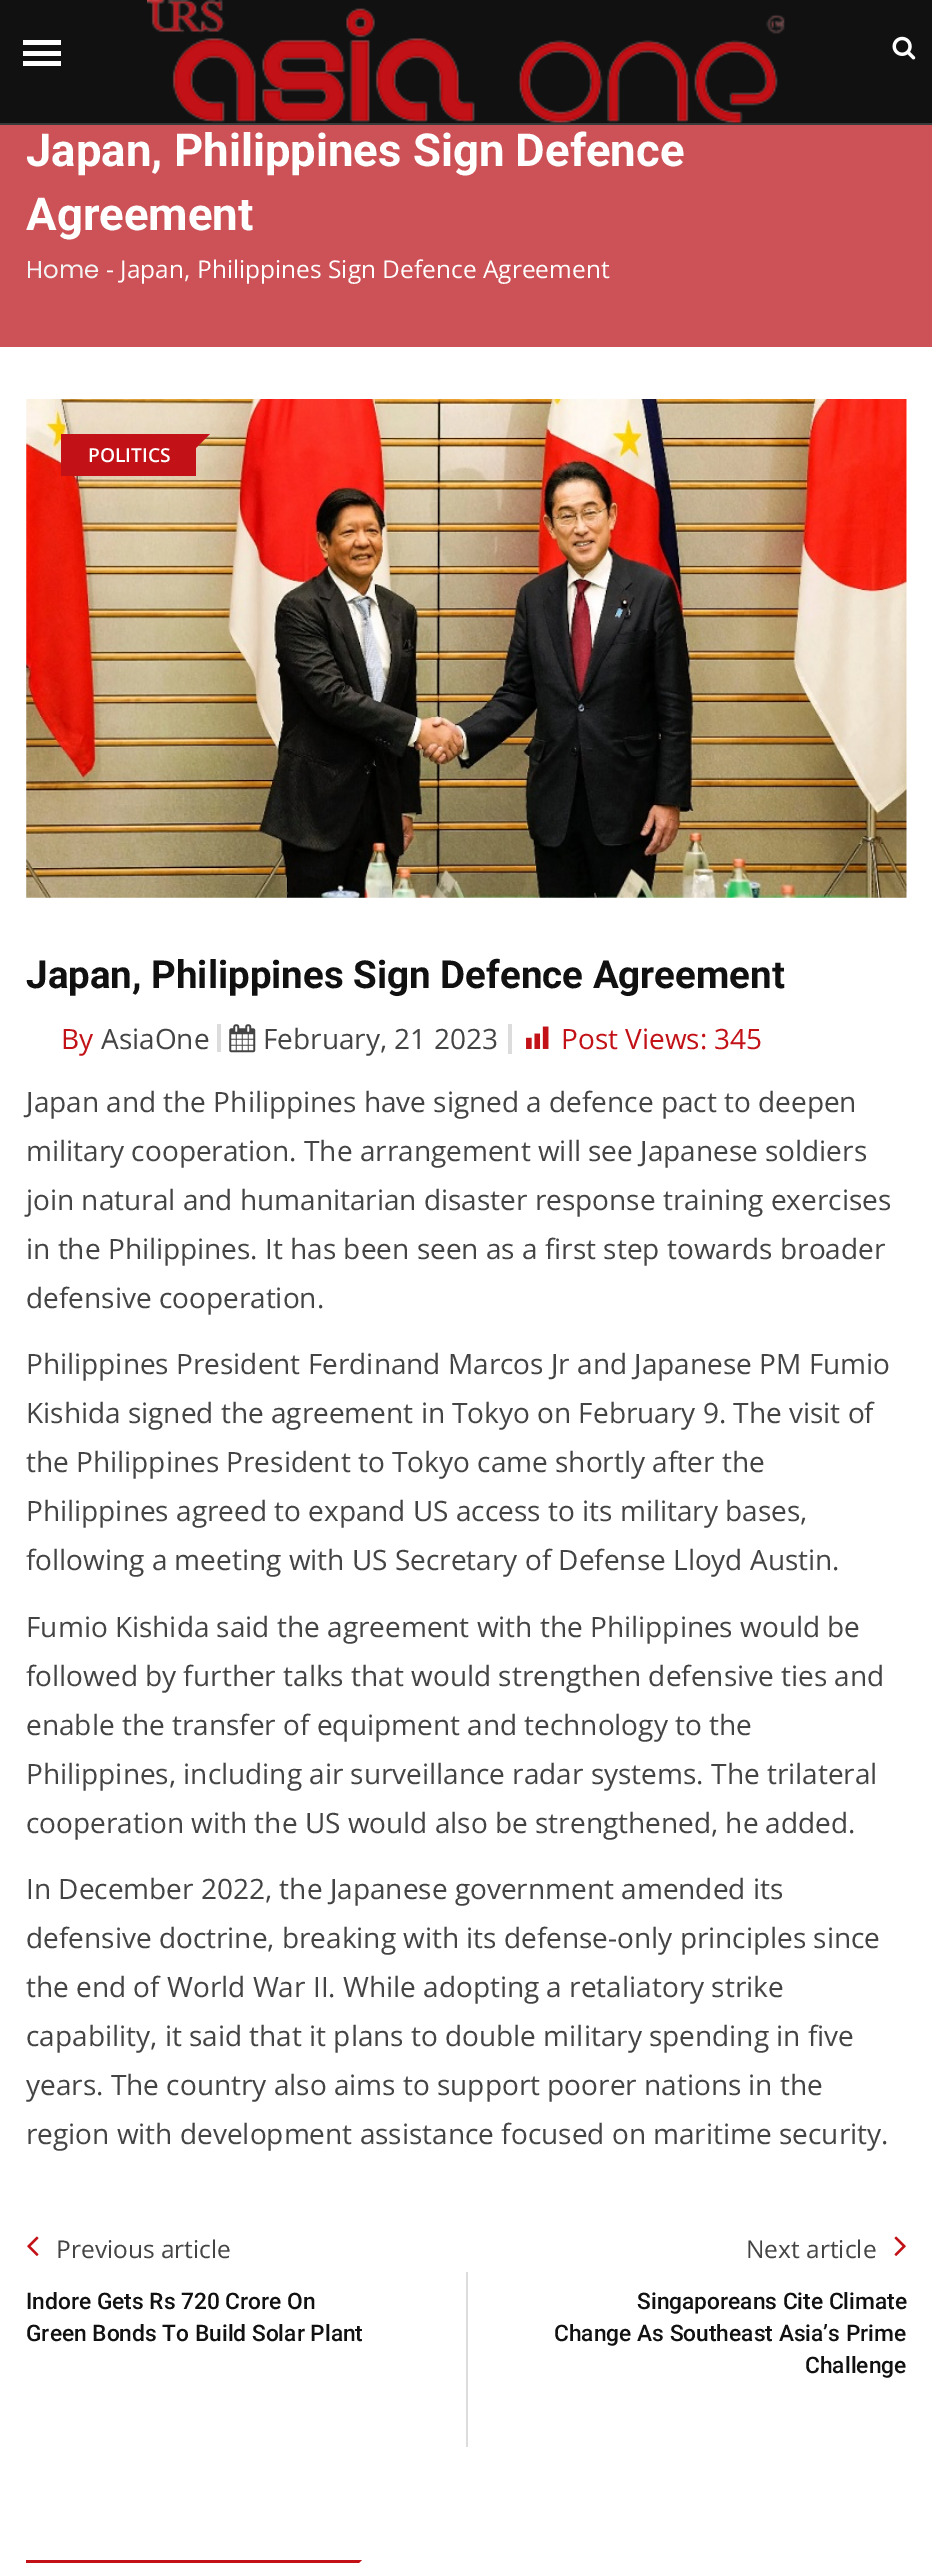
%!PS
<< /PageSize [932 2563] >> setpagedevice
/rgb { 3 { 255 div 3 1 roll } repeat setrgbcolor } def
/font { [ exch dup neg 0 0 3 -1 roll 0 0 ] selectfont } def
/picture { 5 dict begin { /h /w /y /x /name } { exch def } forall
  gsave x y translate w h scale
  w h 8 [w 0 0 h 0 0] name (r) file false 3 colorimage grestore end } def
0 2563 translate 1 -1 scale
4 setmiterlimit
255 255 255 rgb
0 0 932 2563 rectfill
58 58 58 rgb
0 123 932 2 rectfill
17 17 17 rgb
0 0 932 123 rectfill
(img/1.rgb) 147 0 638 123 picture
[
  [23 40 38 5 255 255 255]
  [23 51 38 5 255 255 255]
  [23 61 38 5 255 255 255]
] { aload pop rgb rectfill } forall
(img/2.rgb) 892 36 24 24 picture
205 82 87 rgb
0 125 932 222 rectfill
(img/3.rgb) 26 399 881 499 picture
194 18 23 rgb
61 434 135 42 rectfill
196 434 moveto 210 434 lineto 196 448 lineto closepath fill
220 220 220 rgb
217 1024 4 28 rectfill
508 1024 4 30 rectfill
(img/4.rgb) 229 1024 27 29 picture
(img/5.rgb) 526 1026 23 23 picture
(img/6.rgb) 27 2236 12 20 picture
(img/7.rgb) 894 2236 12 20 picture
466 2272 2 175 rectfill
194 18 23 rgb
26 2560 322 3 rectfill
348 2560 moveto 362 2560 lineto 348 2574 lineto closepath fill
/Roboto-Bold 45.5 font
255 255 255 rgb
26 166 moveto (Japan, Philippines Sign Defence) show
26 230 moveto (Agreement) show
/Poppins-Regular 24.5 font
243 243 243 rgb
26 278 moveto (Home) show
/OpenSans-Regular 24.5 font
255 255 255 rgb
106 278 moveto (- Japan, Philippines Sign Defence Agreement) show
/OpenSans-SemiBold 19.25 font
88 462 moveto (POLITICS) show
/Roboto-Bold 38.5 font
17 17 17 rgb
26 988 moveto (Japan, Philippines Sign Defence Agreement) show
/OpenSans-Regular 28 font
194 18 23 rgb
61 1049 moveto (By) show
68 68 68 rgb
101 1049 moveto (AsiaOne) show
263 1049 moveto (February, 21 2023) show
194 18 23 rgb
561 1049 moveto (Post Views: 345) show
68 68 68 rgb
[
  [(Japan and the Philippines have signed a defence pact to deepen) 26 1112]
  [(military cooperation. The arrangement will see Japanese soldiers) 26 1161]
  [(join natural and humanitarian disaster response training exercises) 26 1210]
  [(in the Philippines. It has been seen as a first step towards broader) 26 1259]
  [(defensive cooperation.) 26 1308]
  [(Philippines President Ferdinand Marcos Jr and Japanese PM Fumio) 26 1374]
  [(Kishida signed the agreement in Tokyo on February 9. The visit of) 26 1423]
  [(the Philippines President to Tokyo came shortly after the) 26 1472]
  [(Philippines agreed to expand US access to its military bases,) 26 1521]
  [(following a meeting with US Secretary of Defense Lloyd Austin.) 26 1570]
  [(Fumio Kishida said the agreement with the Philippines would be) 26 1637]
  [(followed by further talks that would strengthen defensive ties and) 26 1686]
  [(enable the transfer of equipment and technology to the) 26 1735]
  [(Philippines, including air surveillance radar systems. The trilateral) 26 1784]
  [(cooperation with the US would also be strengthened, he added.) 26 1833]
  [(In December 2022, the Japanese government amended its) 26 1899]
  [(defensive doctrine, breaking with its defense-only principles since) 26 1948]
  [(the end of World War II. While adopting a retaliatory strike) 26 1997]
  [(capability, it said that it plans to double military spending in five) 26 2046]
  [(years. The country also aims to support poorer nations in the) 26 2095]
  [(region with development assistance focused on maritime security.) 26 2144]
] { aload pop moveto show } forall
/OpenSans-Regular 24.5 font
56 2258 moveto (Previous article) show
/Roboto-Medium 22.75 font
17 17 17 rgb
26 2309 moveto (Indore Gets Rs 720 Crore On) show
26 2341 moveto (Green Bonds To Build Solar Plant) show
/OpenSans-Regular 24.5 font
68 68 68 rgb
746 2258 moveto (Next article) show
/Roboto-Medium 22.75 font
17 17 17 rgb
[
  [(Singaporeans Cite Climate) 637 2309]
  [(Change As Southeast Asia’s Prime) 554 2341]
  [(Challenge) 805 2373]
] { aload pop moveto show } forall
showpage
